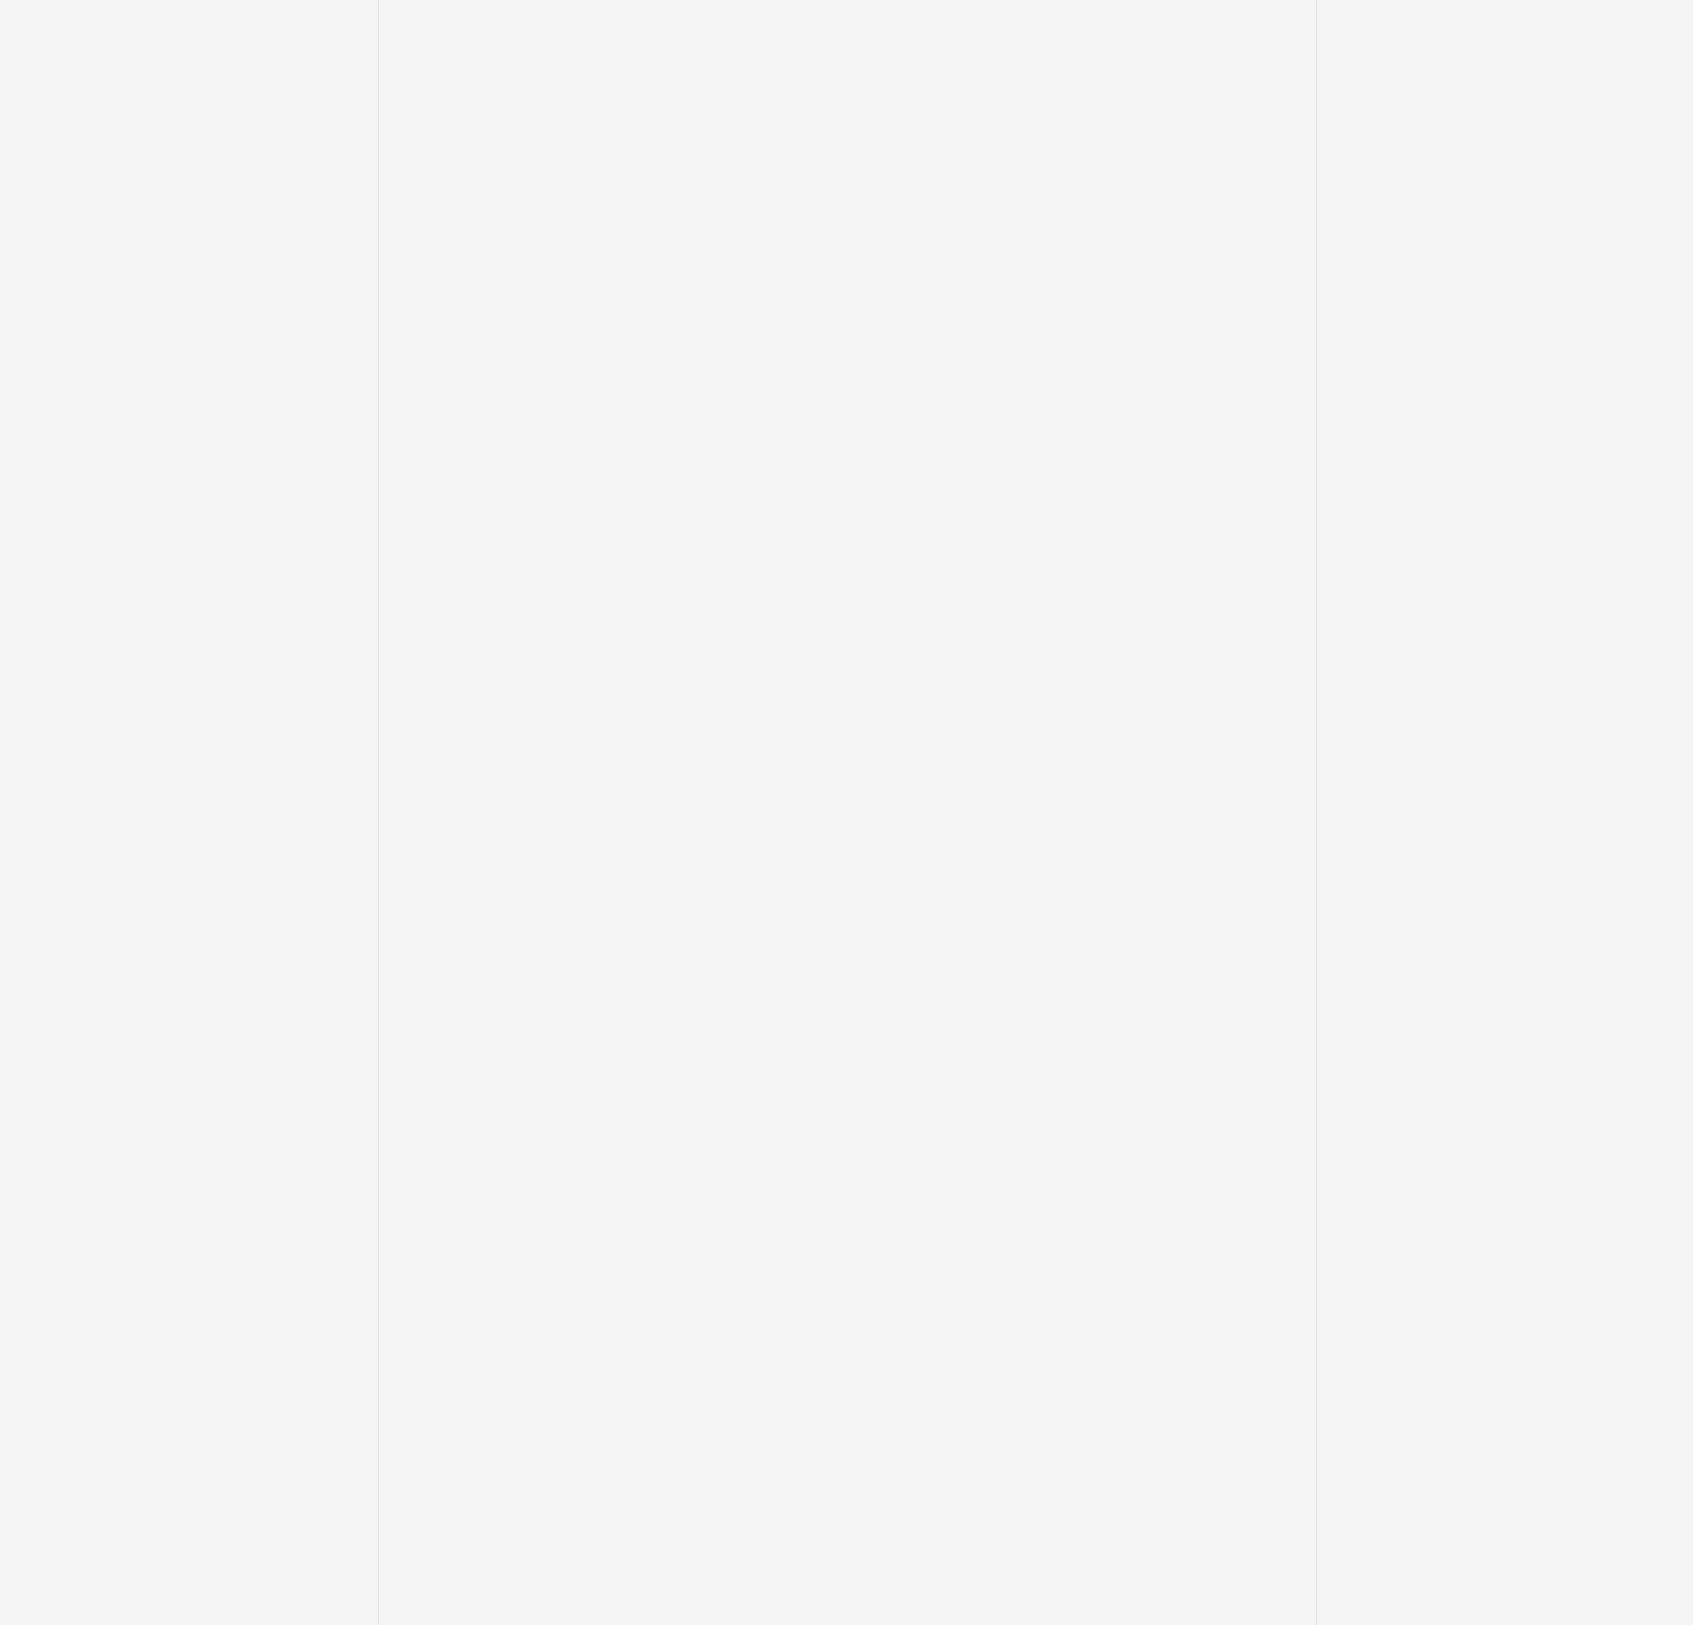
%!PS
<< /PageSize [1693 1625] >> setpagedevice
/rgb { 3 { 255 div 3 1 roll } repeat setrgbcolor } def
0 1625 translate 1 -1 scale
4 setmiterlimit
245 245 245 rgb
0 0 1693 1625 rectfill
224 224 224 rgb
1316 0 1 1625 rectfill
378 0 1 1625 rectfill
showpage
